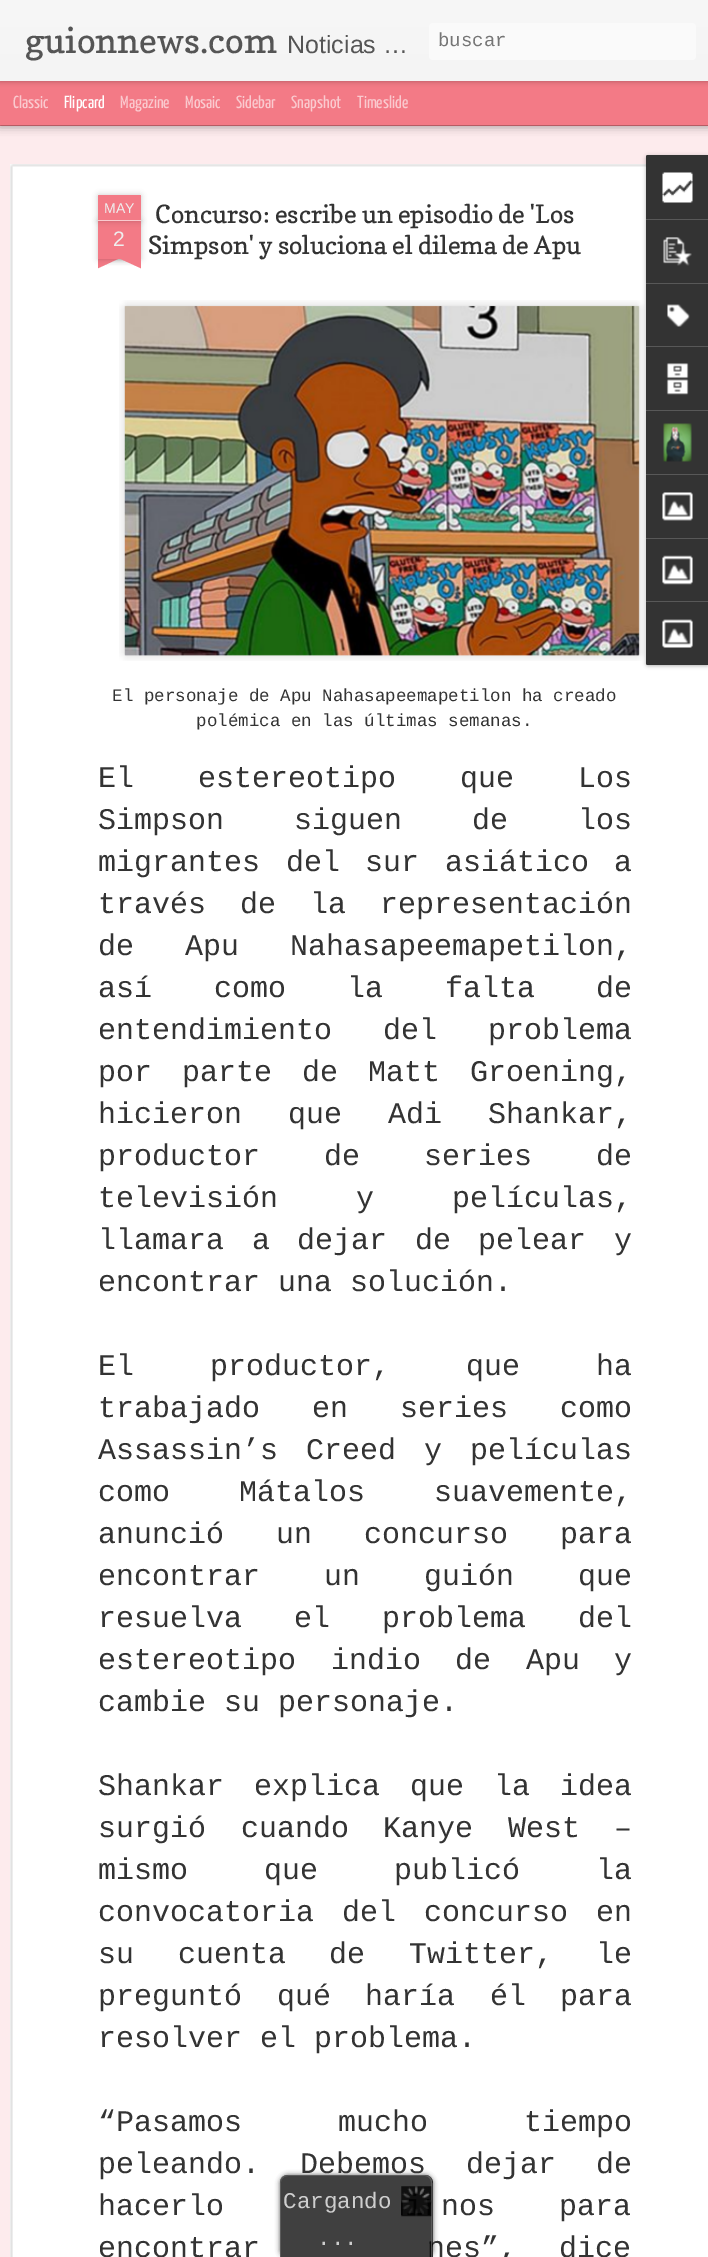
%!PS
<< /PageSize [708 2257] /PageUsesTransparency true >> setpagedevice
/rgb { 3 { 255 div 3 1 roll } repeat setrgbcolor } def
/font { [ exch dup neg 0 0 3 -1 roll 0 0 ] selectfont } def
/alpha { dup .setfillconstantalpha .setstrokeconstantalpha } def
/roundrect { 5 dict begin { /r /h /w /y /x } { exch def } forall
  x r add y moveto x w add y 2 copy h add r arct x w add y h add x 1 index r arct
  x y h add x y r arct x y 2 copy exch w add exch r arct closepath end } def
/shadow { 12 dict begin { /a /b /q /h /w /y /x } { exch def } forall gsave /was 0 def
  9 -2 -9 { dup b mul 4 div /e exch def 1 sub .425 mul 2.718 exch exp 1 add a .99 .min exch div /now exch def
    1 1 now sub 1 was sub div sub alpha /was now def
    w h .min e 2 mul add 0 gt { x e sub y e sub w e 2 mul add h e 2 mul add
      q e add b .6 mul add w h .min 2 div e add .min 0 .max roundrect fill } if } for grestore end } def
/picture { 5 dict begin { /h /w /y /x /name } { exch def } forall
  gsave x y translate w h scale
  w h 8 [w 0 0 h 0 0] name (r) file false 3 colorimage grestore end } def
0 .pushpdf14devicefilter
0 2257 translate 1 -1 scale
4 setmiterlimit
243 122 134 rgb
0 0 708 2257 rectfill
253 235 237 rgb
0 126 708 2131 rectfill
0 0 0 rgb
0 81 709 44 0 5 0.5 shadow
243 122 134 rgb
0 81 708 44 rectfill
0 0 0 rgb
0 0 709 81 0 3 0.3 shadow
gsave 0 0 moveto 708 0 lineto 708 81 lineto 0 81 lineto closepath clip newpath
<< /ShadingType 2 /ColorSpace /DeviceRGB /Coords [0 0 0 81] /Extend [true true] /Function << /FunctionType 2 /Domain [0 1] /C0 [0.969 0.969 0.969] /C1 [0.957 0.957 0.957] /N 1 >> >> shfill grestore
250 250 250 rgb
429 23 267 37 4 roundrect fill
255 255 255 rgb
10 164 698 2093 rectfill
(img/1.rgb) 10 164 636 2093 picture
0 0 0 rgb
98 221 43 38 0 3 0.2 shadow
243 122 134 rgb
98 221 43 38 rectfill
0 0 0 rgb
98 195 43 26 1 3 0.2 shadow
243 122 134 rgb
99 195 moveto 140 195 lineto 140.5 195 141 195.5 141 196 curveto 141 221 lineto 98 221 lineto 98 196 lineto 98 195.5 98.5 195 99 195 curveto closepath fill
250 202 207 rgb
98 220 43 1 rectfill
gsave
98 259 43 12 rectclip
0 0 0 rgb
86 246 63 13 0 3 0.2 shadow
grestore
gsave
98 259 43 12 rectclip
243 122 134 rgb
87 260 moveto 143 234 lineto 148 245 lineto 92 271 lineto closepath fill
grestore
gsave
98 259 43 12 rectclip
0 0 0 rgb
90 246 63 13 0 3 0.2 shadow
grestore
gsave
98 259 43 12 rectclip
243 122 134 rgb
96 234 moveto 152 260 lineto 147 271 lineto 90 245 lineto closepath fill
grestore
(img/2.rgb) 119 300 526 361 picture
(img/3.rgb) 124 305 516 351 picture
0 0 0 rgb
646 156 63 510 2.5 2 0.3 shadow
51 51 51 rgb
648.5 155 moveto 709 155 lineto 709 665 lineto 648.5 665 lineto 647 665 646 664 646 662.5 curveto 646 157.5 lineto 646 156 647 155 648.5 155 curveto closepath fill
648.5 155 moveto 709 155 lineto 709 219 lineto 646 219 lineto 646 157.5 lineto 646 156 647 155 648.5 155 curveto closepath fill
(img/4.rgb) 662 172 31 31 picture
88 88 88 rgb
646 219 62 1 rectfill
(img/5.rgb) 663 237 29 29 picture
646 283 62 1 rectfill
(img/6.rgb) 667 304 23 23 picture
646 346 62 1 rectfill
(img/7.rgb) 666 363 23 32 picture
646 410 62 1 rectfill
(img/8.rgb) 663 423 29 39 picture
646 474 62 1 rectfill
(img/9.rgb) 662 492 31 29 picture
646 538 62 1 rectfill
(img/10.rgb) 662 555 31 30 picture
51 51 51 rgb
646 601 moveto 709 601 lineto 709 665 lineto 648.5 665 lineto 647 665 646 664 646 662.5 curveto closepath fill
88 88 88 rgb
646 601 62 1 rectfill
(img/11.rgb) 662 619 31 29 picture
gsave
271 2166 moveto 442 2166 lineto 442 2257 lineto 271 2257 lineto closepath 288 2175 moveto 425 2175 lineto 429.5 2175 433 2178.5 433 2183 curveto 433 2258 lineto 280 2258 lineto 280 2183 lineto 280 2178.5 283.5 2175 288 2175 curveto closepath eoclip newpath
51 51 51 rgb
280 2175 153 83 8 2.5 0.75 shadow
grestore
/Copse-Regular 35 font
85 85 85 rgb
25 53 moveto (guionnews.com) show
/LiberationSans-Regular 25 font
287 53 moveto (Noticias …) show
/LiberationMono-Regular 19 font
117 117 117 rgb
438 46 moveto (buscar) show
/YanoneKaffeesatz-ExtraLight 17.5 font
250 202 207 rgb
13 108 moveto (Classic) show
255 255 255 rgb
64 108 moveto (Flipcard) show
250 202 207 rgb
[
  [(Magazine) 120 108]
  [(Mosaic) 185 108]
  [(Sidebar) 236 108]
  [(Snapshot) 291 108]
  [(Timeslide) 357 108]
] { aload pop moveto show } forall
/LiberationSans-Regular 14 font
238 238 238 rgb
104 213 moveto (MAY) show
/LiberationSans-Regular 21 font
113 246 moveto (2) show
/Copse-Regular 25 font
51 51 51 rgb
155 223 moveto (Concurso: escribe un episodio de 'Los) show
148 254 moveto (Simpson' y soluciona el dilema de Apu) show
/LiberationMono-Regular 17.5 font
112 701 moveto (El personaje de Apu Nahasapeemapetilon ha creado) show
196 726 moveto (polémica en las últimas semanas.) show
/LiberationMono-Regular 30 font
98 787 moveto 46 0 32 (El estereotipo que Los) widthshow
98 829 moveto 52 0 32 (Simpson siguen de los) widthshow
98 871 moveto 7.5 0 32 (migrantes del sur asiático a) widthshow
98 913 moveto 16 0 32 (través de la representación) widthshow
98 955 moveto 33 0 32 (de Apu Nahasapeemapetilon,) widthshow
98 997 moveto 43.5 0 32 (así como la falta de) widthshow
98 1039 moveto 33 0 32 (entendimiento del problema) widthshow
98 1081 moveto 12 0 32 (por parte de Matt Groening,) widthshow
98 1123 moveto 28 0 32 (hicieron que Adi Shankar,) widthshow
98 1165 moveto 46 0 32 (productor de series de) widthshow
98 1207 moveto 60 0 32 (televisión y películas,) widthshow
98 1249 moveto 9.5 0 32 (llamara a dejar de pelear y) widthshow
98 1291 moveto (encontrar una solución.) show
98 1375 moveto 58 0 32 (El productor, que ha) widthshow
98 1417 moveto 34 0 32 (trabajado en series como) widthshow
98 1459 moveto 10 0 32 (Assassin’s Creed y películas) widthshow
98 1501 moveto 51 0 32 (como Mátalos suavemente,) widthshow
98 1543 moveto 34 0 32 (anunció un concurso para) widthshow
98 1585 moveto 46 0 32 (encontrar un guión que) widthshow
98 1627 moveto 34 0 32 (resuelva el problema del) widthshow
98 1669 moveto 16.5 0 32 (estereotipo indio de Apu y) widthshow
98 1711 moveto (cambie su personaje.) show
98 1795 moveto 12 0 32 (Shankar explica que la idea) widthshow
98 1837 moveto 16.5 0 32 (surgió cuando Kanye West –) widthshow
98 1879 moveto 58 0 32 (mismo que publicó la) widthshow
98 1921 moveto 10 0 32 (convocatoria del concurso en) widthshow
98 1963 moveto 25.5 0 32 (su cuenta de Twitter, le) widthshow
98 2005 moveto 16.5 0 32 (preguntó qué haría él para) widthshow
98 2047 moveto (resolver el problema.) show
98 2131 moveto 78 0 32 (“Pasamos mucho tiempo) widthshow
98 2173 moveto 22 0 32 (peleando. Debemos dejar de) widthshow
98 2215 moveto 46 0 32 (hacerlo) widthshow
441 2215 moveto 46 0 32 (nos para) widthshow
98 2257 moveto 24 0 32 (encontrar) widthshow
427 2257 moveto 24 0 32 (nes”, dice) widthshow
0.75 alpha
0 0 0 rgb
288 2175 moveto 425 2175 lineto 429.5 2175 433 2178.5 433 2183 curveto 433 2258 lineto 280 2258 lineto 280 2183 lineto 280 2178.5 283.5 2175 288 2175 curveto closepath fill
102 102 102 rgb
288 2175 moveto 425 2175 lineto 429 2175 432 2178 432 2182 curveto 432 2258 lineto 280 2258 lineto 280 2182 lineto 280 2178 283 2175 288 2175 curveto closepath 288 2176 moveto 425 2176 lineto 428 2176 431 2179 431 2182 curveto 431 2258 lineto 281 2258 lineto 281 2182 lineto 281 2179 284 2176 288 2176 curveto closepath eofill
1 alpha
(img/12.rgb) 401 2186 31 31 picture
/LiberationMono-Regular 22.5 font
206 206 206 rgb
283 2208 moveto (Cargando) show
317 2245 moveto (...) show
.poppdf14devicefilter showpage
